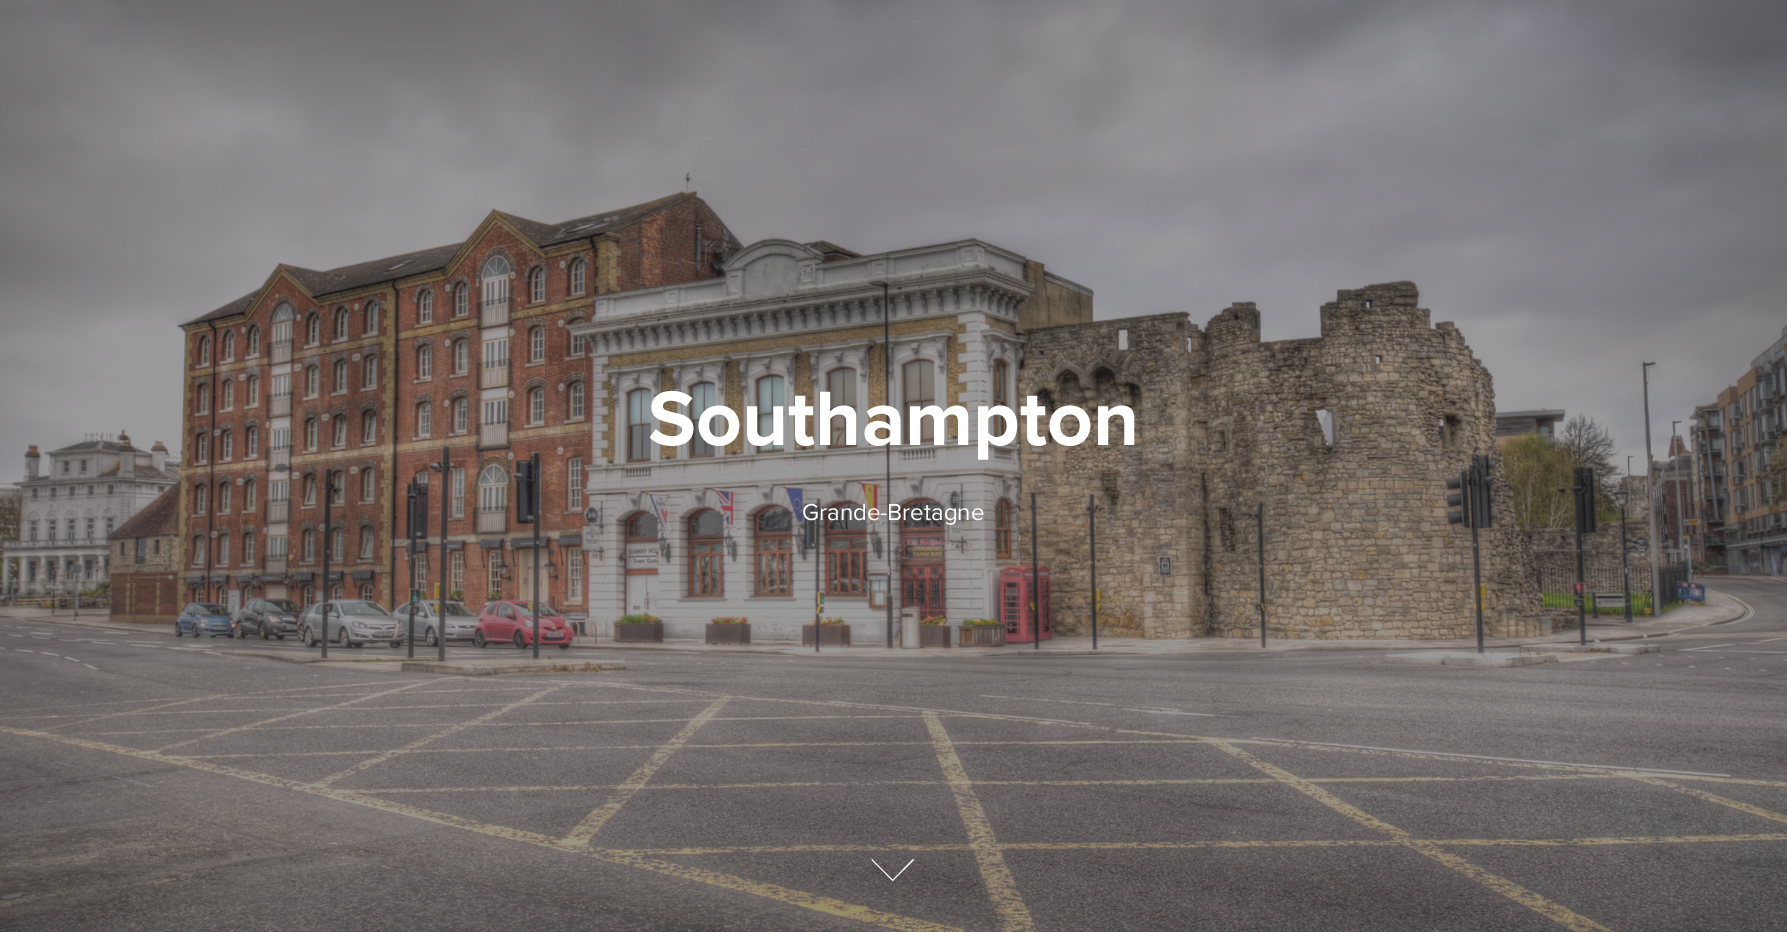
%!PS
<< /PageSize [1787 932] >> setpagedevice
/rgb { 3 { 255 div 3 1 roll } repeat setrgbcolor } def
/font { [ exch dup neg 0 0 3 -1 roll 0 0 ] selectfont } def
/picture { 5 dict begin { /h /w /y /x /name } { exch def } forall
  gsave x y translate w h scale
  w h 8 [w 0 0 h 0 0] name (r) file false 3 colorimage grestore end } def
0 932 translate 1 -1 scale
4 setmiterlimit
255 255 255 rgb
0 0 1787 932 rectfill
(img/1.rgb) 0 0 1787 932 picture
913 859 moveto 914 860 lineto 892.5 881 lineto 892 880.5 lineto closepath fill
872 859 moveto 893.5 880.5 lineto 892.5 881 lineto 871.5 860 lineto closepath fill
/ProximaNova-Bold 80 font
648 445 moveto (Southampton) show
/ProximaNova-Regular 24 font
802 520 moveto (Grande-Bretagne) show
showpage
